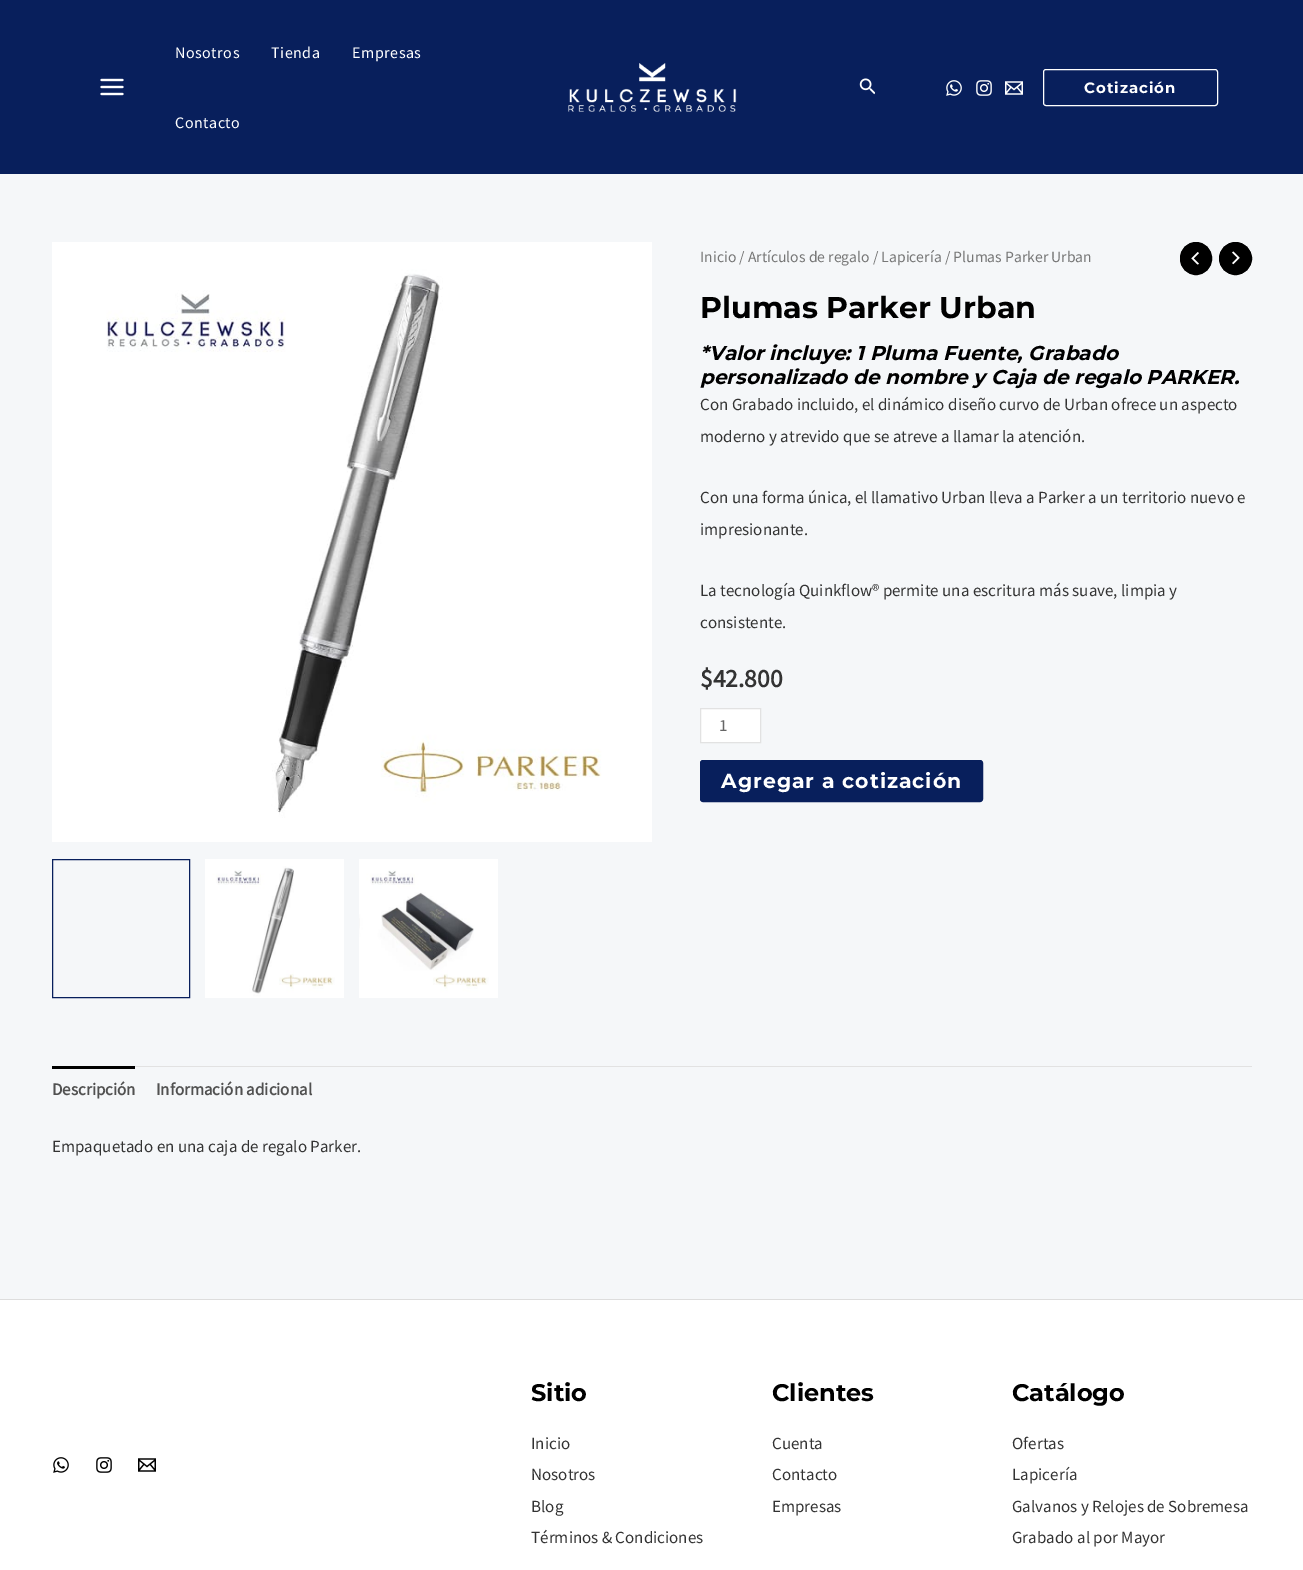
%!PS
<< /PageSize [1303 1570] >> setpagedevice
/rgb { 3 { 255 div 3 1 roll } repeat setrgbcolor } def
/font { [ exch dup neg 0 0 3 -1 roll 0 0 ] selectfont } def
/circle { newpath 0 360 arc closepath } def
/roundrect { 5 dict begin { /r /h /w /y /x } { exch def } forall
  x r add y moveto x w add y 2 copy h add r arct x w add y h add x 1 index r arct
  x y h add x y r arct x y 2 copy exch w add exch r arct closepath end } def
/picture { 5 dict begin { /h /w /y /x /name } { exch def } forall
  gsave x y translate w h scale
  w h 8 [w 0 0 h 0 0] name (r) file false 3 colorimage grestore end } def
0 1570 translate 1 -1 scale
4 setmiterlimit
245 247 249 rgb
0 0 1303 1570 rectfill
8 31 92 rgb
0 0 1303 174 rectfill
(img/1.rgb) 100 78 24 18 picture
(img/2.rgb) 568 63 169 49 picture
(img/3.rgb) 859 78 16 17 picture
(img/4.rgb) 946 80 16 16 picture
(img/5.rgb) 976 80 16 16 picture
(img/6.rgb) 1005 81 18 14 picture
255 255 255 rgb
1043.5 69.5 174 36 2.5 roundrect stroke
(img/7.rgb) 52 242 600 600 picture
8 31 92 rgb
52.5 859.5 137 138 rectstroke
(img/8.rgb) 205 859 139 139 picture
(img/9.rgb) 359 859 139 139 picture
0 0 0 rgb
1180.5 242.5 31 32 15.5 roundrect gsave fill grestore
stroke
(img/10.rgb) 1191 252 8 13 picture
1235.5 258.5 16 circle gsave fill grestore
stroke
(img/11.rgb) 1232 251 8 14 picture
255 255 255 rgb
700.5 708.5 moveto 760.5 708.5 lineto 760.5 742.5 lineto 700.5 742.5 lineto closepath gsave fill grestore
226 226 226 rgb
stroke
8 31 92 rgb
700.5 760.5 282 41 2.5 roundrect gsave fill grestore
stroke
[
  [135 1066 1117 1 226 226 226]
  [52 1066 83 3 0 0 0]
  [0 1300 1303 270 255 255 255]
  [0 1299 1303 1 221 221 221]
] { aload pop rgb rectfill } forall
(img/12.rgb) 53 1457 16 16 picture
(img/13.rgb) 96 1457 16 16 picture
(img/14.rgb) 138 1458 18 14 picture
/SourceSansPro-Regular 16 font
255 255 255 rgb
175 58 moveto 0.5 0 (Nosotros) ashow
271 58 moveto 0.5 0 (Tienda) ashow
352 58 moveto 0.5 0 (Empresas) ashow
175 128 moveto 0.5 0 (Contacto) ashow
/Montserrat-Thin 15 font
1084 93 moveto 1 0 (Cotización) ashow
/SourceSansPro-Regular 15.65 font
119 119 119 rgb
700 262 moveto (Inicio / Artículos de regalo / Lapicería / Plumas Parker Urban) show
/Montserrat-Thin 30 font
0 0 0 rgb
700 318 moveto (Plumas Parker Urban) show
/Montserrat-ThinItalic 20 font
700 360 moveto (*Valor incluye: 1 Pluma Fuente, Grabado) show
700 384 moveto (personalizado de nombre y Caja de regalo PARKER.) show
/SourceSansPro-Regular 17 font
51 51 51 rgb
[
  [(Con Grabado incluido, el dinámico diseño curvo de Urban ofrece un aspecto) 700 410]
  [(moderno y atrevido que se atreve a llamar la atención.) 700 442]
  [(Con una forma única, el llamativo Urban lleva a Parker a un territorio nuevo e) 700 503]
  [(impresionante.) 700 535]
  [(La tecnología Quinkflow® permite una escritura más suave, limpia y) 700 596]
  [(consistente.) 700 628]
] { aload pop moveto show } forall
/SourceSansPro-Bold 25.5 font
700 687 moveto ($42.800) show
/SourceSansPro-Regular 17 font
102 102 102 rgb
719 731 moveto (1) show
/Montserrat-Thin 20.4 font
255 255 255 rgb
721 788 moveto 1 0 (Agregar a cotización) ashow
/SourceSansPro-Bold 17 font
81 81 81 rgb
52 1095 moveto (Descripción) show
156 1095 moveto (Información adicional) show
/SourceSansPro-Regular 17 font
51 51 51 rgb
52 1152 moveto (Empaquetado en una caja de regalo Parker.) show
/Montserrat-Thin 24 font
0 0 0 rgb
531 1401 moveto (Sitio) show
/SourceSansPro-Regular 17 font
51 51 51 rgb
[
  [(Inicio) 531 1449]
  [(Nosotros) 531 1480]
  [(Blog) 531 1512]
  [(Términos & Condiciones) 531 1543]
] { aload pop moveto show } forall
/Montserrat-Thin 24 font
0 0 0 rgb
772 1401 moveto (Clientes) show
/SourceSansPro-Regular 17 font
51 51 51 rgb
[
  [(Cuenta) 772 1449]
  [(Contacto) 772 1480]
  [(Empresas) 772 1512]
] { aload pop moveto show } forall
/Montserrat-Thin 24 font
0 0 0 rgb
1012 1401 moveto (Catálogo) show
/SourceSansPro-Regular 17 font
51 51 51 rgb
[
  [(Ofertas) 1012 1449]
  [(Lapicería) 1012 1480]
  [(Galvanos y Relojes de Sobremesa) 1012 1512]
  [(Grabado al por Mayor) 1012 1543]
] { aload pop moveto show } forall
showpage
